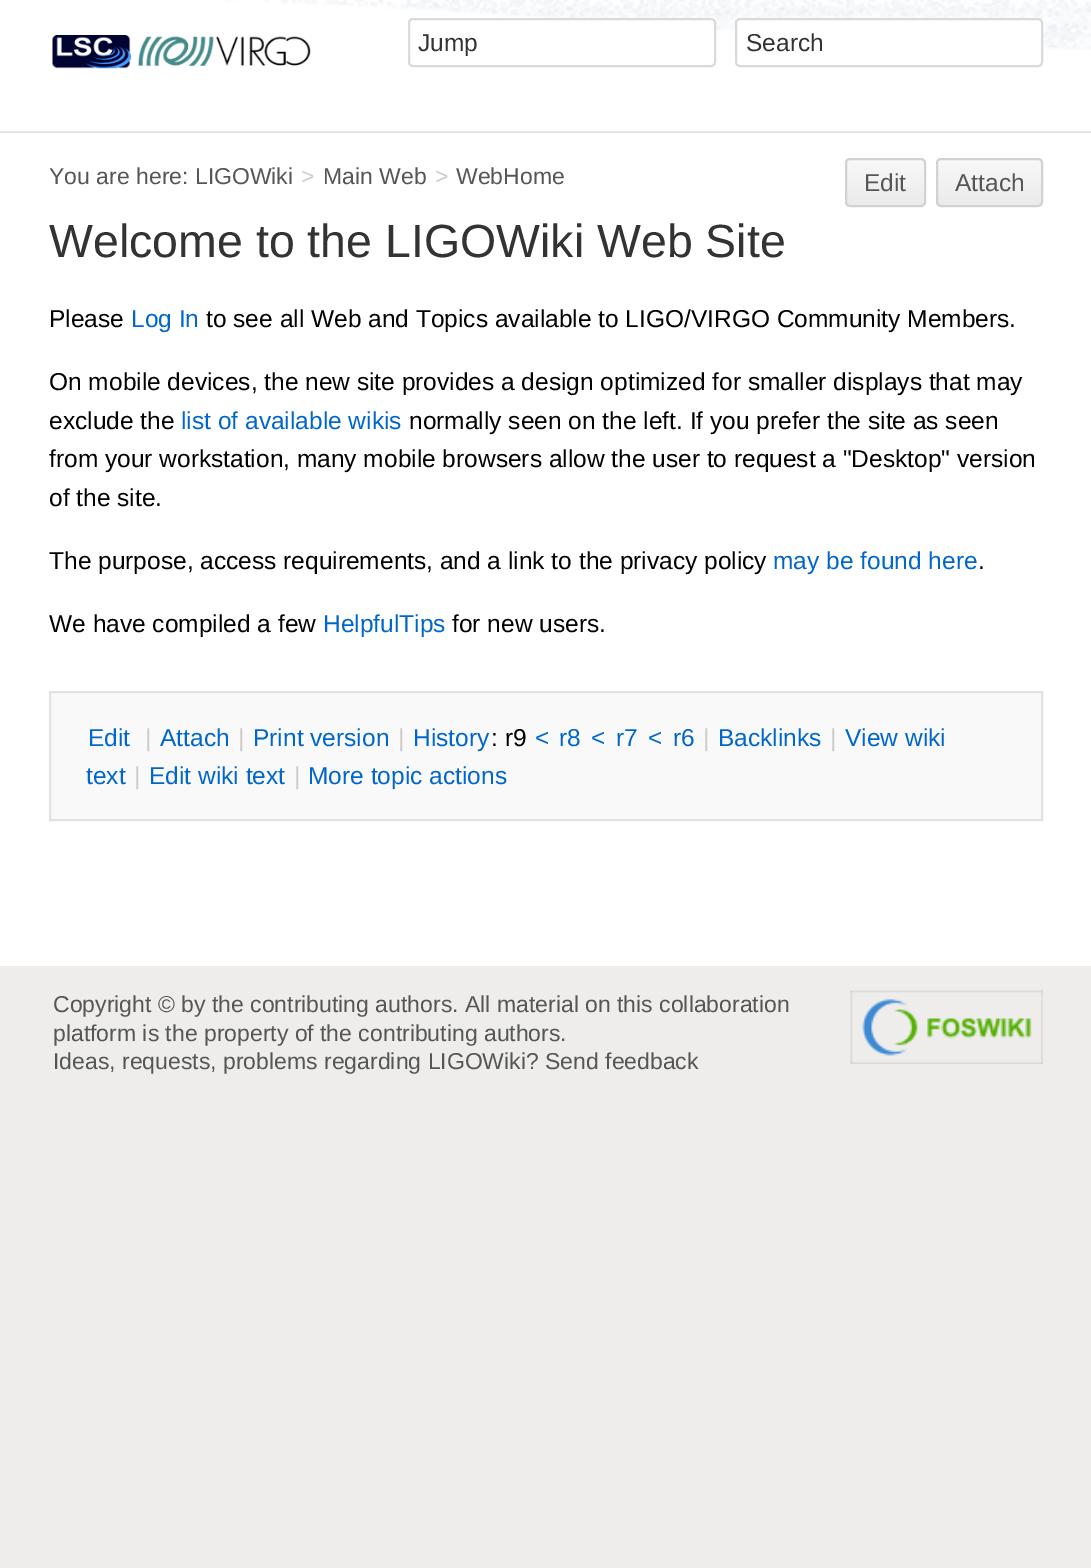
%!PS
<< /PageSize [1091 1568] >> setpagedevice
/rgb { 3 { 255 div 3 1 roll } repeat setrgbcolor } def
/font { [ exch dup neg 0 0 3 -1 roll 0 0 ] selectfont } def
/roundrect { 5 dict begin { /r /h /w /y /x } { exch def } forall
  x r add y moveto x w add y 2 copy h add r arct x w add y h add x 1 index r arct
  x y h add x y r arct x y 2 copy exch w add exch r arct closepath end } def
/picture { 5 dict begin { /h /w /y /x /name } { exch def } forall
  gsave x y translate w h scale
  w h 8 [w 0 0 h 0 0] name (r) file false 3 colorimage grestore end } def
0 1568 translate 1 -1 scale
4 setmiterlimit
238 237 236 rgb
0 0 1091 1568 rectfill
223 223 223 rgb
0 131 1091 2 rectfill
(img/1.rgb) 0 0 1091 132 picture
(img/2.rgb) 52 35 259 34 picture
255 255 255 rgb
409 19 306 47 4 roundrect gsave fill grestore
218 218 218 rgb
2 setlinewidth
stroke
255 255 255 rgb
736 19 306 47 4 roundrect gsave fill grestore
218 218 218 rgb
stroke
255 255 255 rgb
0 133 1091 833 rectfill
gsave
845 158 81 49 5 roundrect clip newpath
gsave 845 159 moveto 926 159 lineto 926 205 lineto 845 205 lineto closepath clip newpath
<< /ShadingType 2 /ColorSpace /DeviceRGB /Coords [886 159 886 205] /Extend [true true] /Function << /FunctionType 2 /Domain [0 1] /C0 [0.973 0.973 0.973] /C1 [0.922 0.922 0.922] /N 1 >> >> shfill grestore
grestore
210 210 210 rgb
846 159 79 47 4 roundrect stroke
gsave
936 158 107 49 5 roundrect clip newpath
gsave 936 159 moveto 1043 159 lineto 1043 205 lineto 936 205 lineto closepath clip newpath
<< /ShadingType 2 /ColorSpace /DeviceRGB /Coords [990 159 990 205] /Extend [true true] /Function << /FunctionType 2 /Domain [0 1] /C0 [0.973 0.973 0.973] /C1 [0.922 0.922 0.922] /N 1 >> >> shfill grestore
grestore
937 159 105 47 4 roundrect stroke
249 249 250 rgb
50 692 moveto 1042 692 lineto 1042 820 lineto 50 820 lineto closepath gsave fill grestore
226 226 226 rgb
stroke
(img/3.rgb) 850 990 193 74 picture
/LiberationSans-Regular 24.5 font
51 51 51 rgb
418 51 moveto (Jump) show
746 51 moveto (Search) show
/LiberationSans-Regular 23 font
86 86 86 rgb
49 184 moveto (You are here: LIGOWiki) show
204 204 204 rgb
301 184 moveto (>) show
86 86 86 rgb
323 184 moveto (Main Web) show
204 204 204 rgb
435 184 moveto (>) show
86 86 86 rgb
456 184 moveto (WebHome) show
/LiberationSans-Regular 24.5 font
864 191 moveto (Edit) show
955 191 moveto (Attach) show
/LiberationSans-Regular 46.5 font
51 51 51 rgb
49 257 moveto (Welcome to the LIGOWiki Web Site) show
/LiberationSans-Regular 24.5 font
0 0 0 rgb
49 327 moveto (Please) show
0 102 204 rgb
131 327 moveto (Log In) show
0 0 0 rgb
[
  [(to see all Web and Topics available to LIGO/VIRGO Community Members.) 206 327]
  [(On mobile devices, the new site provides a design optimized for smaller displays that may) 49 390]
  [(exclude the) 49 429]
] { aload pop moveto show } forall
0 102 204 rgb
181 429 moveto (list of available wikis) show
0 0 0 rgb
[
  [(normally seen on the left. If you prefer the site as seen) 409 429]
  [(from your workstation, many mobile browsers allow the user to request a "Desktop" version) 49 467]
  [(of the site.) 49 506]
  [(The purpose, access requirements, and a link to the privacy policy) 49 569]
] { aload pop moveto show } forall
0 102 204 rgb
773 569 moveto (may be found here) show
0 0 0 rgb
978 569 moveto (.) show
49 632 moveto (We have compiled a few) show
0 102 204 rgb
323 632 moveto (HelpfulTips) show
0 0 0 rgb
452 632 moveto (for new users.) show
0 102 204 rgb
88 746 moveto (Edit) show
204 204 204 rgb
145 746 moveto (|) show
0 102 204 rgb
160 746 moveto (Attach) show
204 204 204 rgb
238 746 moveto (|) show
0 102 204 rgb
253 746 moveto (Print version) show
204 204 204 rgb
398 746 moveto (|) show
0 102 204 rgb
413 746 moveto (History) show
0 0 0 rgb
491 746 moveto (: r9) show
0 102 204 rgb
[
  [(<) 535 746]
  [(r8) 559 746]
  [(<) 591 746]
  [(r7) 616 746]
  [(<) 648 746]
  [(r6) 673 746]
] { aload pop moveto show } forall
204 204 204 rgb
703 746 moveto (|) show
0 102 204 rgb
718 746 moveto (Backlinks) show
204 204 204 rgb
830 746 moveto (|) show
0 102 204 rgb
845 746 moveto (View wiki) show
86 784 moveto (text) show
204 204 204 rgb
134 784 moveto (|) show
0 102 204 rgb
149 784 moveto (Edit wiki text) show
204 204 204 rgb
294 784 moveto (|) show
0 102 204 rgb
308 784 moveto (More topic actions) show
/LiberationSans-Regular 23 font
86 86 86 rgb
[
  [(Copyright © by the contributing authors. All material on this collaboration) 53 1012]
  [(platform is the property of the contributing authors.) 53 1041]
  [(Ideas, requests, problems regarding LIGOWiki? Send feedback) 53 1069]
] { aload pop moveto show } forall
showpage
